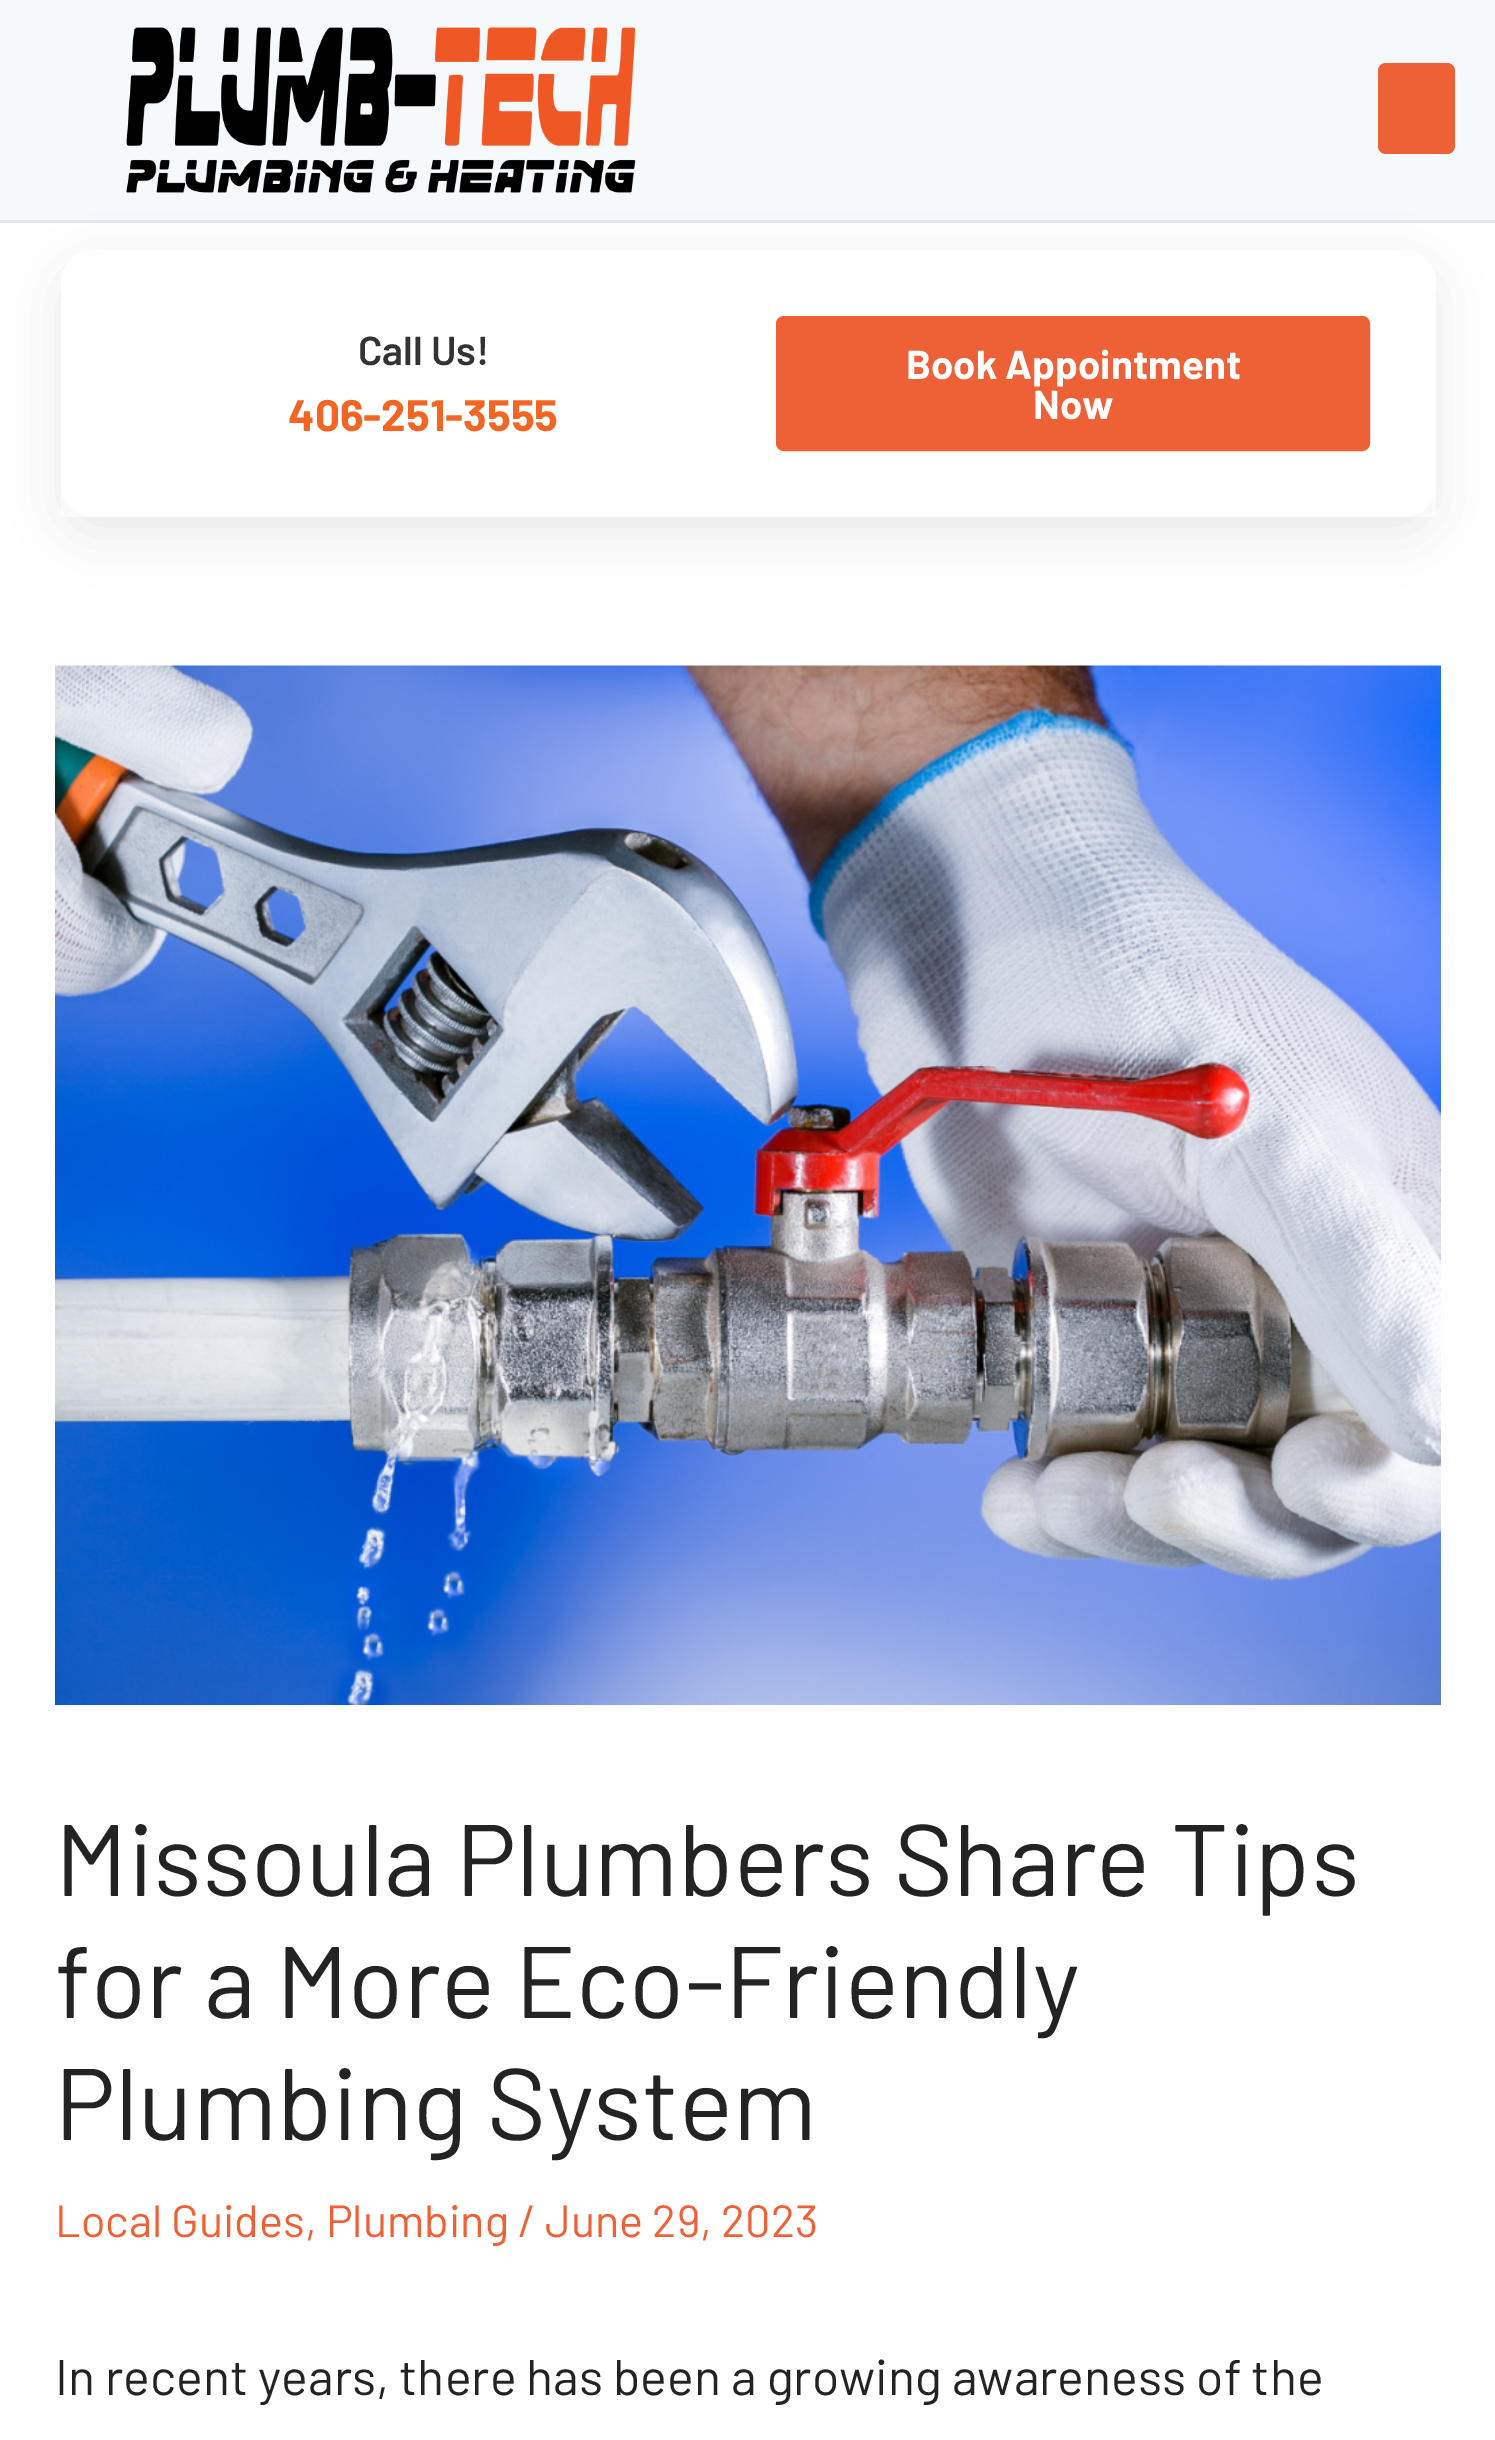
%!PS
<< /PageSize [1495 2440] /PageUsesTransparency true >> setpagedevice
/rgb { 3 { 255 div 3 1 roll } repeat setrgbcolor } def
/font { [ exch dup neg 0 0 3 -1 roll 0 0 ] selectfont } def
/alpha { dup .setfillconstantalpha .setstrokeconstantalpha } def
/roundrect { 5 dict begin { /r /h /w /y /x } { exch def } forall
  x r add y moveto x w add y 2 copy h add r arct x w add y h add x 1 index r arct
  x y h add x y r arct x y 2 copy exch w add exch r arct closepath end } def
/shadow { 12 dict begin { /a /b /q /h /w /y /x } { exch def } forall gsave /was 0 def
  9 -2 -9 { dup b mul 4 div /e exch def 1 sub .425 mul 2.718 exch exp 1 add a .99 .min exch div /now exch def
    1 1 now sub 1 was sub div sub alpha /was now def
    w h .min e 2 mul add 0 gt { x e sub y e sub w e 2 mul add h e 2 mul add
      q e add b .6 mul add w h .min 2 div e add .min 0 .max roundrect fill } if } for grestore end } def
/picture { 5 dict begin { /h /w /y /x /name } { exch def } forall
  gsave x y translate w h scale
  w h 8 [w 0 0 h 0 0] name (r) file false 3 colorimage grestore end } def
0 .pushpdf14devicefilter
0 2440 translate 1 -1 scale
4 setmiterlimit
255 255 255 rgb
0 0 1495 2440 rectfill
246 249 252 rgb
0 0 1495 220 rectfill
226 232 240 rgb
0 220 1495 3 rectfill
(img/1.rgb) 126 27 510 166 picture
238 97 54 rgb
1378 63 77 91 8 roundrect fill
0 0 0 rgb
61 267 1375 267 33 25 0.08 shadow
255 255 255 rgb
61 250 1375 267 33 roundrect fill
0.5 alpha
61 274 1375 243 rectfill
1 alpha
238 97 54 rgb
781.5 321.5 583 124 2.5 roundrect gsave fill grestore
11 setlinewidth
stroke
(img/2.rgb) 55 665 1386 1040 picture
/Barlow-SemiBold 40.25 font
51 51 51 rgb
358 365 moveto (Call Us!) show
/Barlow-Bold 44 font
242 101 34 rgb
288 431 moveto (406-251-3555) show
/Barlow-Bold 40.25 font
255 255 255 rgb
906 379 moveto (Book Appointment) show
1033 419 moveto (Now) show
/Barlow-Regular 101.5 font
35 35 35 rgb
[
  [(Missoula Plumbers Share Tips) 55 1896]
  [(for a More Eco-Friendly) 55 2018]
  [(Plumbing System) 55 2140]
] { aload pop moveto show } forall
/Barlow-Regular 45.1 font
238 97 54 rgb
55 2237 moveto (Local Guides, Plumbing / June 29, 2023) show
/Barlow-Regular 50.15 font
35 35 35 rgb
55 2395 moveto (In recent years, there has been a growing awareness of the) show
.poppdf14devicefilter showpage
